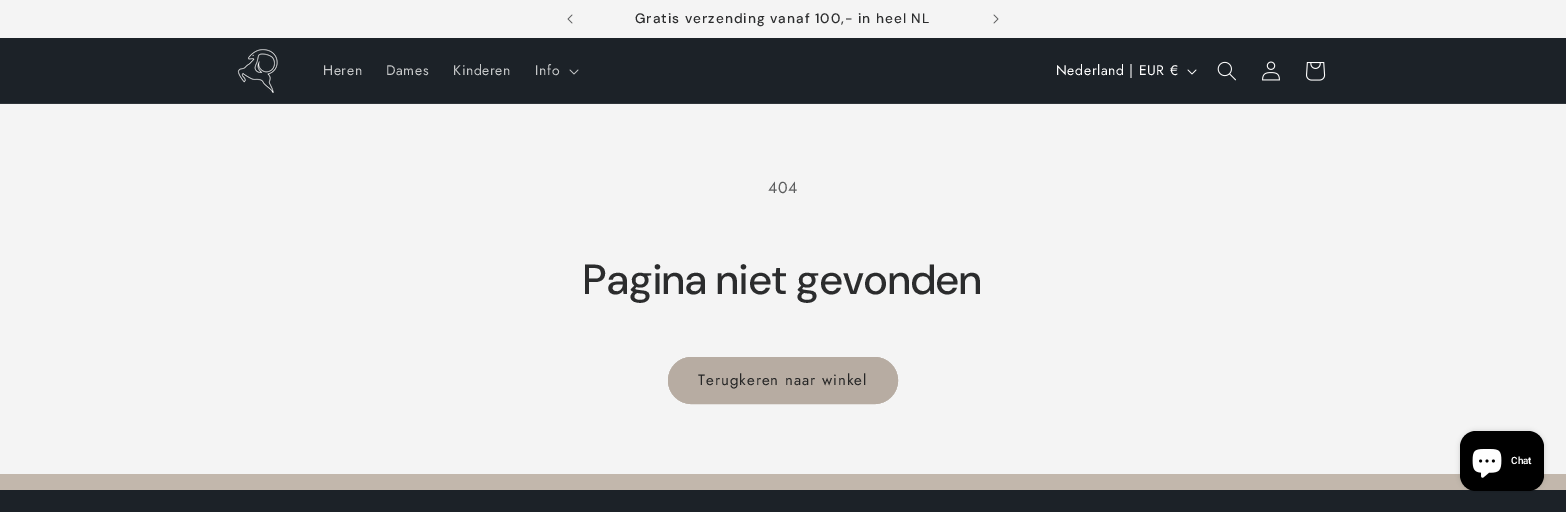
%!PS
<< /PageSize [1566 512] /PageUsesTransparency true >> setpagedevice
/rgb { 3 { 255 div 3 1 roll } repeat setrgbcolor } def
/font { [ exch dup neg 0 0 3 -1 roll 0 0 ] selectfont } def
/alpha { dup .setfillconstantalpha .setstrokeconstantalpha } def
/roundrect { 5 dict begin { /r /h /w /y /x } { exch def } forall
  x r add y moveto x w add y 2 copy h add r arct x w add y h add x 1 index r arct
  x y h add x y r arct x y 2 copy exch w add exch r arct closepath end } def
/shadow { 12 dict begin { /a /b /q /h /w /y /x } { exch def } forall gsave /was 0 def
  9 -2 -9 { dup b mul 4 div /e exch def 1 sub .425 mul 2.718 exch exp 1 add a .99 .min exch div /now exch def
    1 1 now sub 1 was sub div sub alpha /was now def
    w h .min e 2 mul add 0 gt { x e sub y e sub w e 2 mul add h e 2 mul add
      q e add b .6 mul add w h .min 2 div e add .min 0 .max roundrect fill } if } for grestore end } def
/picture { 5 dict begin { /h /w /y /x /name } { exch def } forall
  gsave x y translate w h scale
  w h 8 [w 0 0 h 0 0] name (r) file false 3 colorimage grestore end } def
0 .pushpdf14devicefilter
0 512 translate 1 -1 scale
4 setmiterlimit
244 244 244 rgb
0 0 1566 512 rectfill
(img/1.rgb) 567 14 6 10 picture
(img/2.rgb) 993 14 6 10 picture
28 34 40 rgb
0 38 1566 65 rectfill
46 52 57 rgb
0 103 1566 1 rectfill
(img/3.rgb) 237 49 41 44 picture
(img/4.rgb) 569 69 10 6 picture
(img/5.rgb) 1187 69 10 6 picture
(img/6.rgb) 1217 61 19 20 picture
(img/7.rgb) 1262 61 18 20 picture
(img/8.rgb) 1306 62 20 19 picture
183 172 162 rgb
668 357 230 47 23.5 roundrect fill
668.5 357.5 229 46 23 roundrect stroke
194 183 172 rgb
0 474 1566 16 rectfill
28 34 40 rgb
0 490 1566 22 rectfill
0 0 0 rgb
1460 431 84 60 16 2.5 0.15 shadow
1460 431 84 60 16 roundrect fill
(img/9.rgb) 1472 449 30 29 picture
/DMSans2-Medium 13.65 font
43 44 45 rgb
635 23 moveto 1 0 (Gratis verzending vanaf 100,- in heel NL) ashow
/Jost-Regular 14 font
198 200 201 rgb
323 75 moveto 0.6 0 (Heren) ashow
386 75 moveto 0.6 0 (Dames) ashow
453 75 moveto 0.6 0 (Kinderen) ashow
535 75 moveto 0.6 0 (Info) ashow
255 255 255 rgb
1056 75 moveto 0.6 0 (Nederland | EUR €) ashow
/Jost-Regular 16 font
93 94 95 rgb
768 193 moveto 0.6 0 (404) ashow
/DMSans-Medium 42 font
43 44 45 rgb
583 294 moveto 0.6 0 (Pagina niet gevonden) ashow
/Jost-Regular 15 font
38 38 38 rgb
698 385 moveto 1 0 (Terugkeren naar winkel) ashow
/Roboto-SemiBold 10 font
255 255 255 rgb
1511 464 moveto (Chat) show
.poppdf14devicefilter showpage
